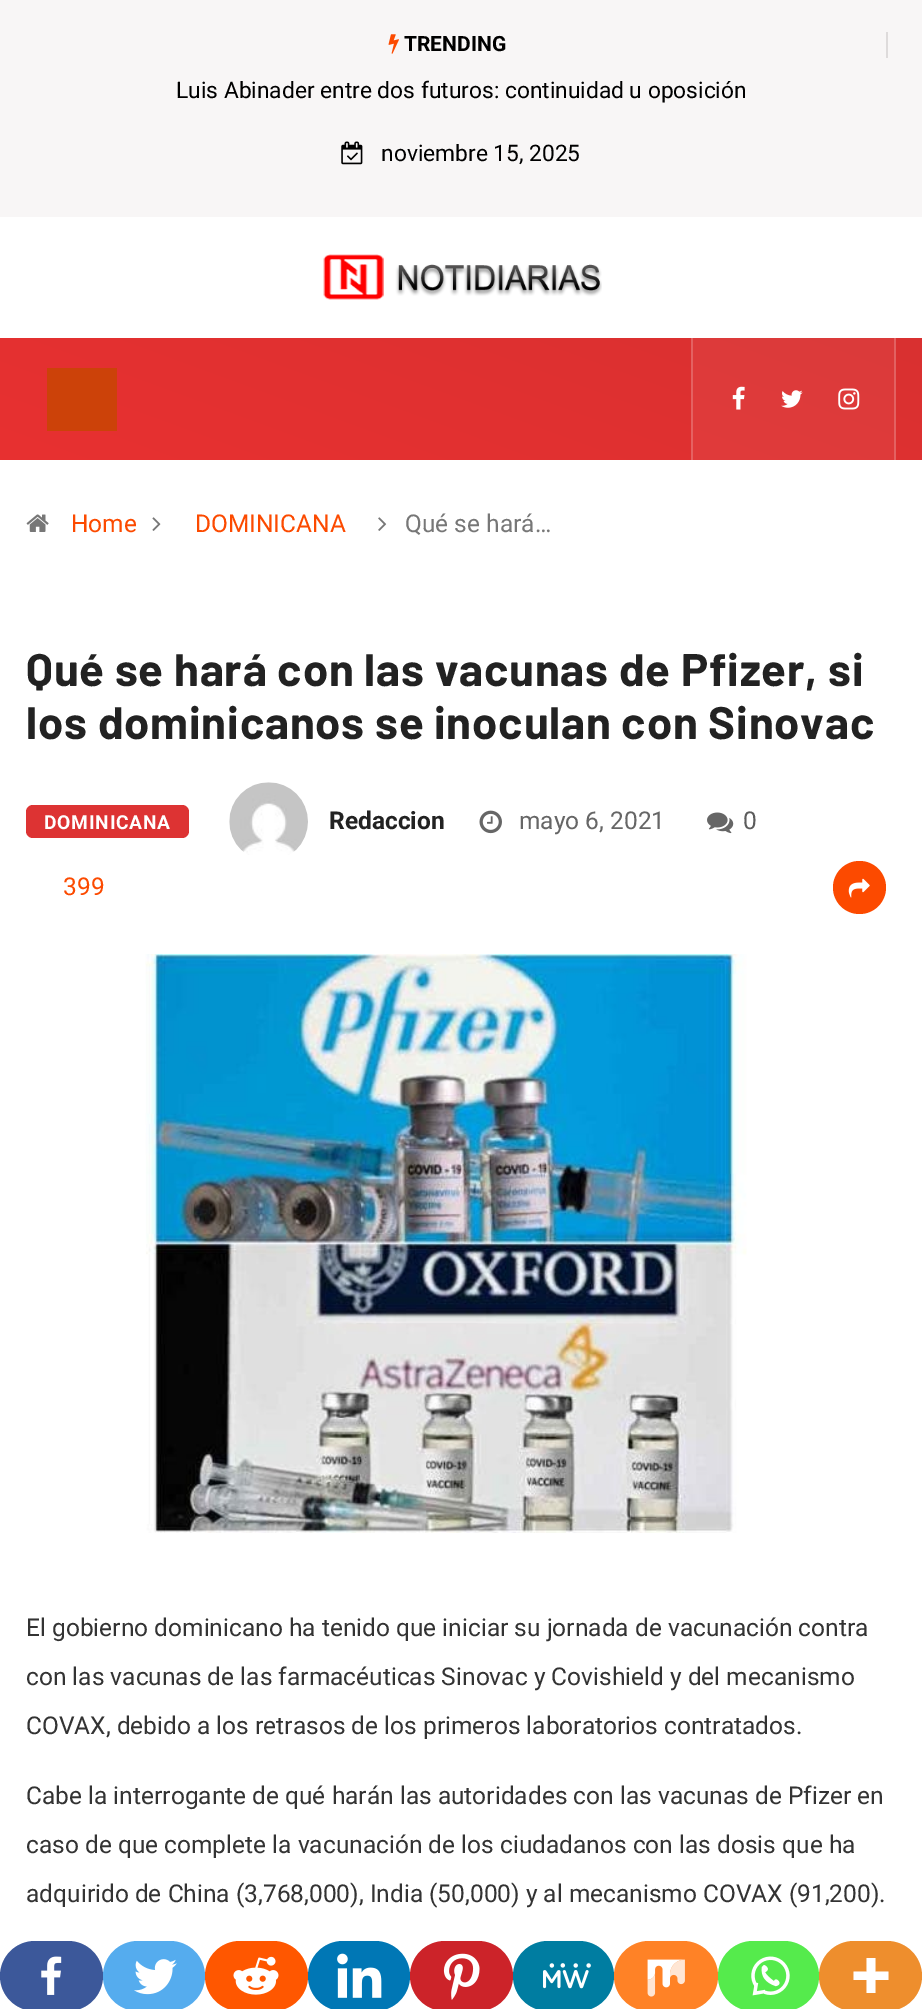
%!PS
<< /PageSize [922 2009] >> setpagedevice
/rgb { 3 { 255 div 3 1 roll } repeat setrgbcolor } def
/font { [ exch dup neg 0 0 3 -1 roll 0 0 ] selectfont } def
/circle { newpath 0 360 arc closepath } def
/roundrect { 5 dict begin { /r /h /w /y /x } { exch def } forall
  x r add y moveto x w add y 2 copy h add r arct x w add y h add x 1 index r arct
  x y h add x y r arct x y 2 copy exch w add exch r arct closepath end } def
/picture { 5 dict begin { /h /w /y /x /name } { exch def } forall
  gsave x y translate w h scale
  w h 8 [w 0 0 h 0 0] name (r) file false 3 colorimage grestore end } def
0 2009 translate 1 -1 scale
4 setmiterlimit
255 255 255 rgb
0 0 922 2009 rectfill
248 246 246 rgb
0 0 922 217 rectfill
222 219 219 rgb
886 32 2 26 rectfill
(img/1.rgb) 388 34 11 20 picture
(img/2.rgb) 341 141 22 24 picture
(img/3.rgb) 323 254 279 46 picture
gsave 0 338 moveto 922 338 lineto 922 460 lineto 0 460 lineto closepath clip newpath
<< /ShadingType 2 /ColorSpace /DeviceRGB /Coords [387 601 535 197] /Extend [true true] /Function << /FunctionType 2 /Domain [0 1] /C0 [0.91 0.188 0.188] /C1 [0.851 0.188 0.188] /N 1 >> >> shfill grestore
gsave 693 338 moveto 894 338 lineto 894 460 lineto 693 460 lineto closepath clip newpath
<< /ShadingType 2 /ColorSpace /DeviceRGB /Coords [387 601 535 197] /Extend [true true] /Function << /FunctionType 2 /Domain [0 1] /C0 [0.914 0.227 0.227] /C1 [0.859 0.227 0.227] /N 1 >> >> shfill grestore
gsave 691 338 moveto 693 338 lineto 693 460 lineto 691 460 lineto closepath clip newpath
<< /ShadingType 2 /ColorSpace /DeviceRGB /Coords [387 601 535 197] /Extend [true true] /Function << /FunctionType 2 /Domain [0 1] /C0 [0.929 0.38 0.38] /C1 [0.886 0.38 0.38] /N 1 >> >> shfill grestore
gsave 894 338 moveto 896 338 lineto 896 460 lineto 894 460 lineto closepath clip newpath
<< /ShadingType 2 /ColorSpace /DeviceRGB /Coords [387 601 535 197] /Extend [true true] /Function << /FunctionType 2 /Domain [0 1] /C0 [0.929 0.38 0.38] /C1 [0.886 0.38 0.38] /N 1 >> >> shfill grestore
204 66 9 rgb
47 368 70 63 rectfill
(img/4.rgb) 732 386 13 24 picture
(img/5.rgb) 781 390 22 18 picture
(img/6.rgb) 838 388 22 22 picture
(img/7.rgb) 26 514 23 18 picture
(img/8.rgb) 152 517 9 14 picture
(img/9.rgb) 378 517 9 14 picture
221 51 51 rgb
26 805 163 33 7 roundrect fill
(img/10.rgb) 229 782 79 73 picture
(img/11.rgb) 479 810 23 24 picture
(img/12.rgb) 707 812 27 22 picture
252 74 0 rgb
859.5 887.5 26.5 circle fill
(img/13.rgb) 848 878 22 20 picture
(img/14.rgb) 145 953 602 580 picture
60 88 154 rgb
0 1941 103 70 35 roundrect fill
(img/15.rgb) 41 1956 21 39 picture
85 172 238 rgb
103 1941 102 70 35 roundrect fill
(img/16.rgb) 134 1959 43 36 picture
255 87 0 rgb
205 1941 103 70 35 roundrect fill
(img/17.rgb) 233 1956 46 39 picture
0 119 181 rgb
308 1941 102 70 35 roundrect fill
(img/18.rgb) 337 1953 45 45 picture
204 35 41 rgb
410 1941 103 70 35 roundrect fill
(img/19.rgb) 443 1953 37 47 picture
0 125 161 rgb
513 1941 101 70 35 roundrect fill
(img/20.rgb) 543 1963 48 26 picture
255 130 38 rgb
614 1941 104 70 35 roundrect fill
(img/21.rgb) 647 1959 38 38 picture
85 235 76 rgb
718 1941 101 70 35 roundrect fill
(img/22.rgb) 751 1956 39 40 picture
238 142 45 rgb
819 1941 103 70 35 roundrect fill
255 255 255 rgb
875.5 1971.5 moveto 875.5 1958 lineto 866.5 1958 lineto 866.5 1971.5 lineto 853.5 1971.5 lineto 853.5 1980 lineto 866.5 1980 lineto 866.5 1993 lineto 875.5 1993 lineto 875.5 1980 lineto 888.5 1980 lineto 888.5 1971.5 lineto closepath eofill
/Roboto-Bold 21 font
0 0 0 rgb
404 51 moveto (TRENDING) show
/Roboto-Regular 22.75 font
176 98 moveto (Luis Abinader entre dos futuros: continuidad u oposición) show
381 161 moveto (noviembre 15, 2025) show
/Roboto-Regular 24.5 font
252 74 0 rgb
71 532 moveto (Home) show
195 532 moveto (DOMINICANA) show
119 119 119 rgb
405 532 moveto (Qué se hará…) show
/Barlow-Bold 45.5 font
34 34 34 rgb
26 686 moveto 0.8 0 (Qué se hará con las vacunas de Pfizer, si) ashow
26 739 moveto 0.8 0 (los dominicanos se inoculan con Sinovac) ashow
/Roboto-Bold 19.25 font
255 255 255 rgb
44 829 moveto 0.75 0 (DOMINICANA) ashow
/Roboto-Bold 24.5 font
34 34 34 rgb
329 829 moveto (Redaccion) show
/Roboto-Regular 24.5 font
102 102 102 rgb
519 829 moveto (mayo 6, 2021) show
92 92 92 rgb
743 829 moveto (0) show
252 74 0 rgb
63 895 moveto (399) show
51 51 51 rgb
[
  [(El gobierno dominicano ha tenido que iniciar su jornada de vacunación contra) 26 1636]
  [(con las vacunas de las farmacéuticas Sinovac y Covishield y del mecanismo) 26 1685]
  [(COVAX, debido a los retrasos de los primeros laboratorios contratados.) 26 1734]
  [(Cabe la interrogante de qué harán las autoridades con las vacunas de Pfizer en) 26 1804]
  [(caso de que complete la vacunación de los ciudadanos con las dosis que ha) 26 1853]
  [(adquirido de China \(3,768,000\), India \(50,000\) y al mecanismo COVAX \(91,200\).) 26 1902]
] { aload pop moveto show } forall
showpage
